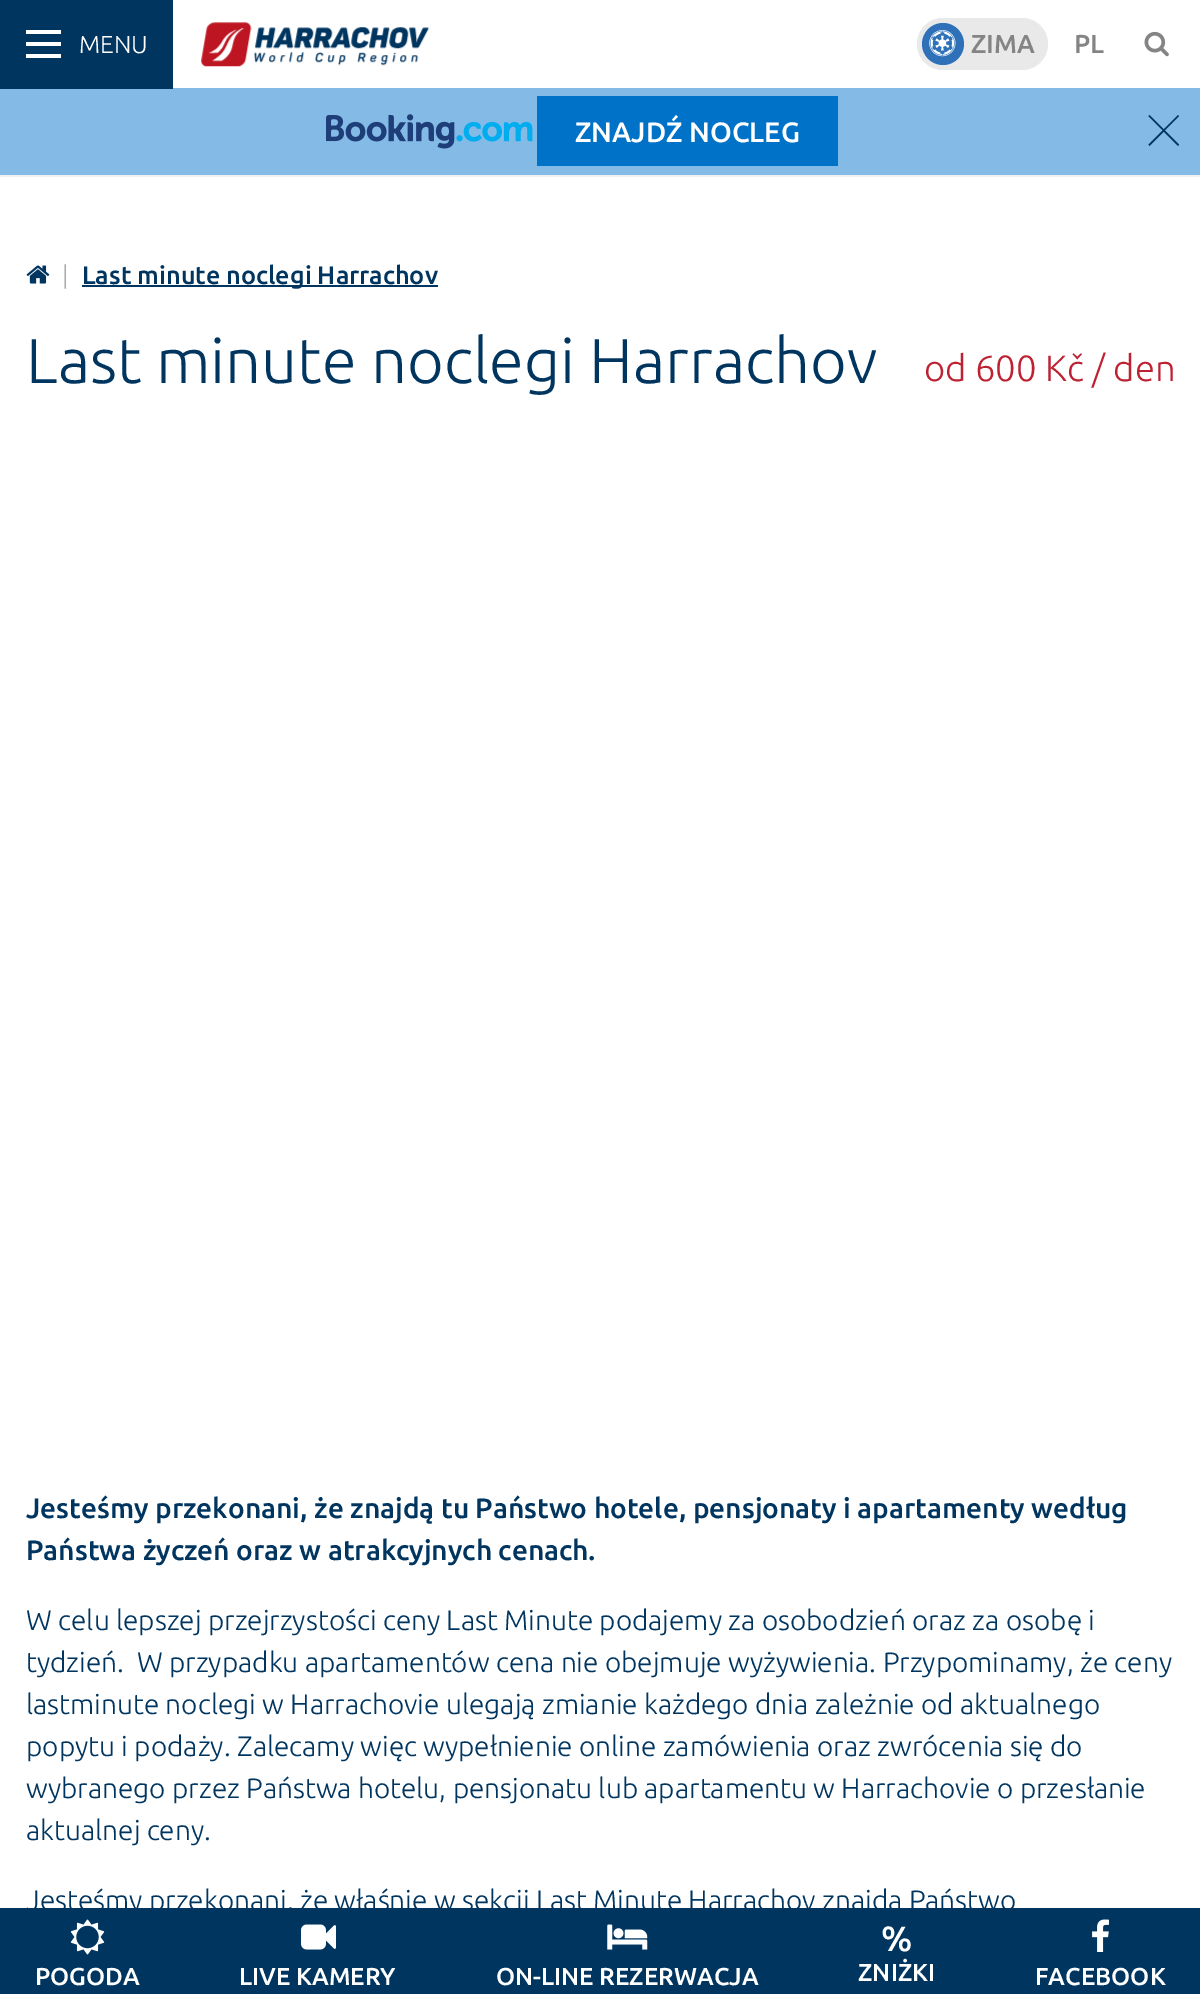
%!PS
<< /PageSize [1200 1994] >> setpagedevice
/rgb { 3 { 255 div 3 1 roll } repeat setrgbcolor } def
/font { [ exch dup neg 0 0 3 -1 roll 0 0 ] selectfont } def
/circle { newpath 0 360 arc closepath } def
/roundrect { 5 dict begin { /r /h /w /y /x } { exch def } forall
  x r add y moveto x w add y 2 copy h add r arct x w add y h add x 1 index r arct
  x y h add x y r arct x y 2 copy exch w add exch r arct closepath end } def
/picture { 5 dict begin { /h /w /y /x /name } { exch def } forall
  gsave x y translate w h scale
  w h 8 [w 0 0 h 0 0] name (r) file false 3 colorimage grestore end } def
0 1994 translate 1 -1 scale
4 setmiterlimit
255 255 255 rgb
0 0 1200 1994 rectfill
[
  [0 175 1200 2 240 240 240]
  [0 88 1200 87 132 186 230]
  [0 0 173 89 0 53 96]
  [26 30 35 4 255 255 255]
  [26 42 35 4 255 255 255]
  [26 54 35 4 255 255 255]
] { aload pop rgb rectfill } forall
(img/1.rgb) 201 22 229 45 picture
233 233 233 rgb
917 18 131 52 26 roundrect fill
46 113 184 rgb
943 44 21 circle fill
(img/2.rgb) 929 30 27 27 picture
(img/3.rgb) 1144 31 25 26 picture
(img/4.rgb) 326 114 207 35 picture
0 115 200 rgb
537 96 301 70 rectfill
0 53 96 rgb
1148.5 144.5 moveto 1178 115 lineto 1179 116 lineto 1149.5 146 lineto closepath fill
1149.5 115 moveto 1179 144.5 lineto 1178 146 lineto 1148.5 116 lineto closepath fill
(img/5.rgb) 26 265 24 19 picture
82 285 356 2 rectfill
0 1908 1200 86 rectfill
(img/6.rgb) 70 1919 35 36 picture
(img/7.rgb) 301 1924 35 26 picture
(img/8.rgb) 607 1924 41 26 picture
(img/9.rgb) 1092 1919 17 33 picture
/Ubuntu-Light 24.5 font
255 255 255 rgb
79 53 moveto (MENU) show
/Ubuntu-Medium 26 font
132 132 132 rgb
971 53 moveto (ZIMA) show
1074 53 moveto (PL) show
/Ubuntu-Medium 28 font
255 255 255 rgb
575 142 moveto (ZNAJDŹ NOCLEG) show
/Ubuntu-Light 25.25 font
170 170 170 rgb
62 284 moveto (|) show
/Ubuntu-Medium 25.25 font
0 53 96 rgb
82 284 moveto (Last minute noclegi Harrachov) show
/Ubuntu-Light 63.25 font
26 383 moveto (Last minute noclegi Harrachov) show
/Ubuntu-Light 36.5 font
189 33 50 rgb
924 381 moveto (od 600 Kč / den) show
/Ubuntu-Medium 28 font
0 53 96 rgb
26 1518 moveto (Jesteśmy przekonani, że znajdą tu Państwo hotele, pensjonaty i apartamenty według) show
26 1560 moveto (Państwa życzeń oraz w atrakcyjnych cenach.) show
/Ubuntu-Light 28 font
[
  [(W celu lepszej przejrzystości ceny Last Minute podajemy za osobodzień oraz za osobę i) 26 1630]
  [(tydzień.  W przypadku apartamentów cena nie obejmuje wyżywienia. Przypominamy, że ceny) 26 1672]
  [(lastminute noclegi w Harrachovie ulegają zmianie każdego dnia zależnie od aktualnego) 26 1714]
  [(popytu i podaży. Zalecamy więc wypełnienie online zamówienia oraz zwrócenia się do) 26 1756]
  [(wybranego przez Państwa hotelu, pensjonatu lub apartamentu w Harrachovie o przesłanie) 26 1798]
  [(aktualnej ceny.) 26 1840]
  [(Jesteśmy przekonani, że właśnie w sekcji Last Minute Harrachov znajdą Państwo) 26 1910]
] { aload pop moveto show } forall
/Ubuntu-Medium 24.5 font
255 255 255 rgb
[
  [(POGODA) 35 1985]
  [(LIVE KAMERY) 239 1985]
  [(ON-LINE REZERWACJA) 496 1985]
] { aload pop moveto show } forall
/Ubuntu-Medium 35 font
881 1951 moveto (%) show
/Ubuntu-Medium 24.5 font
858 1981 moveto (ZNIŻKI) show
1035 1985 moveto (FACEBOOK) show
showpage
